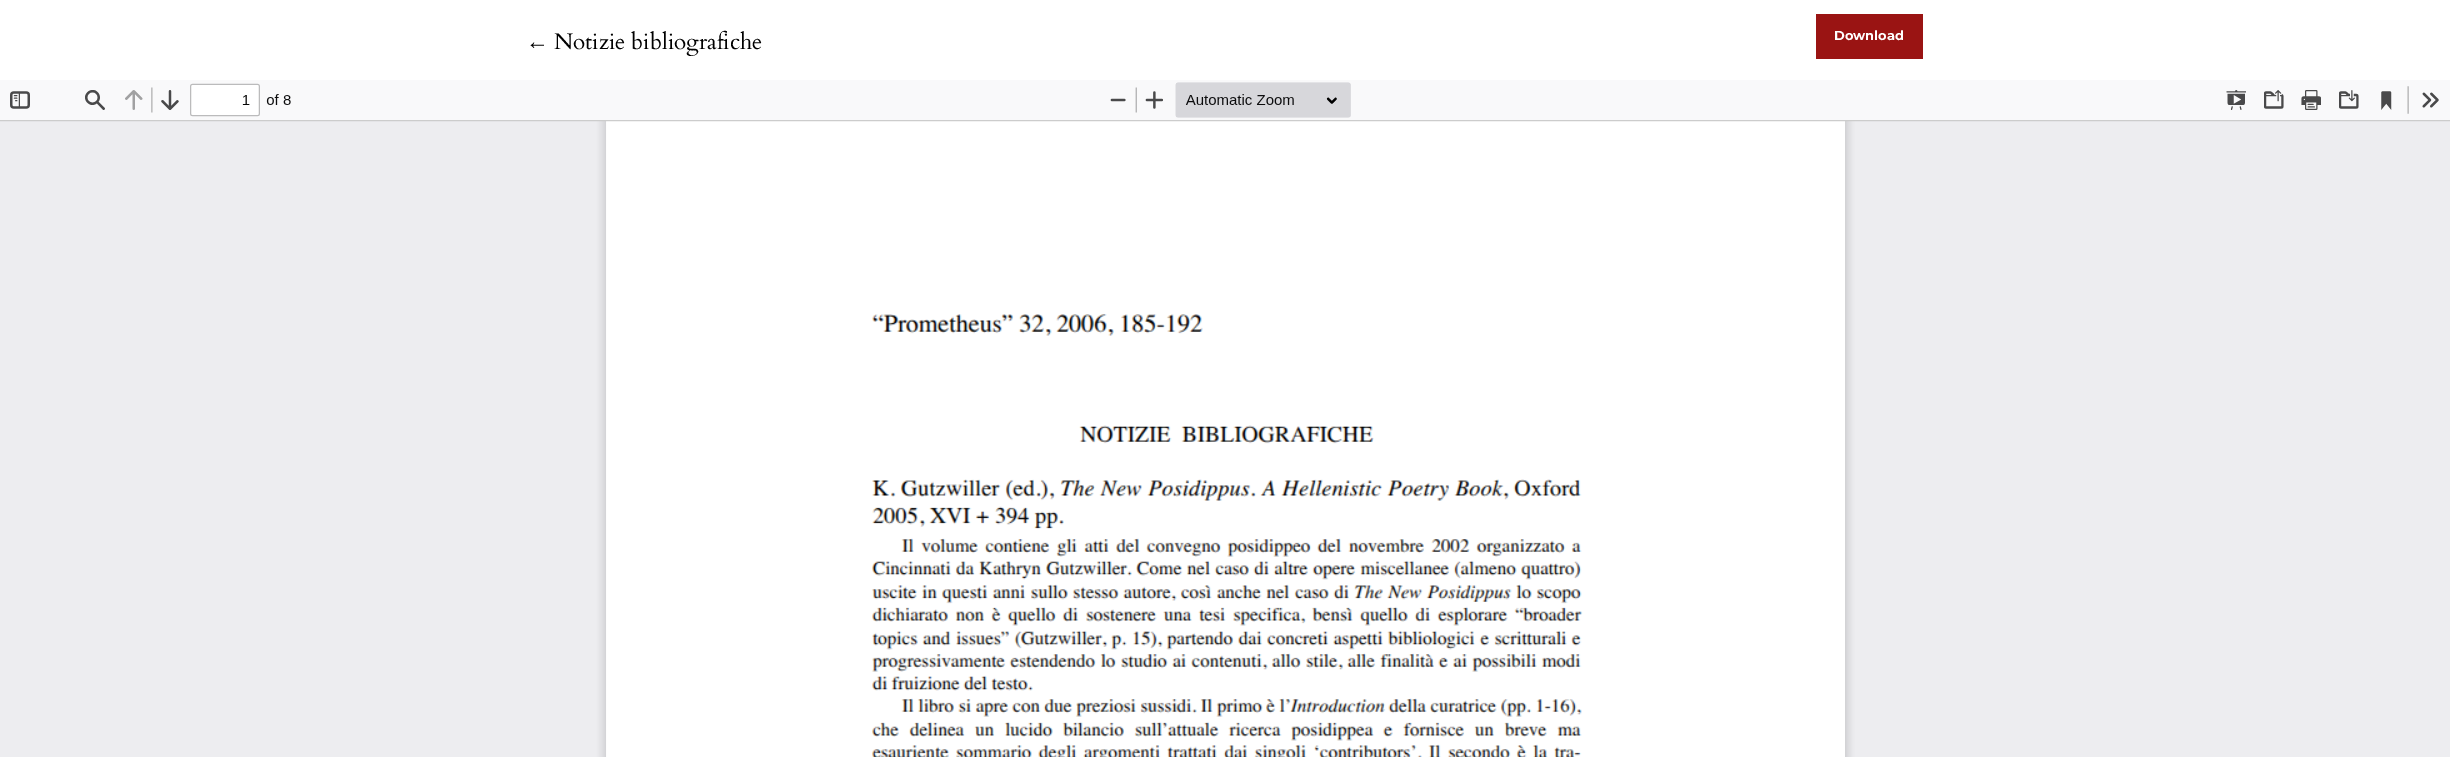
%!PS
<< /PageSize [2450 757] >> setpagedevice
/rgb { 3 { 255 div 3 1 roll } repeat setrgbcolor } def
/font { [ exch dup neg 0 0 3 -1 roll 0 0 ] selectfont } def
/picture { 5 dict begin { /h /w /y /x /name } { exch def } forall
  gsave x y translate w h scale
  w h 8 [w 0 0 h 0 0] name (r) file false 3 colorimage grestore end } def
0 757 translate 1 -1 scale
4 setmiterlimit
255 255 255 rgb
0 0 2450 757 rectfill
154 20 19 rgb
1816 14 107 45 rectfill
(img/1.rgb) 0 80 2450 677 picture
/LiberationSerif-Regular 22.5 font
0 0 0 rgb
526 49 moveto (←) show
/Cardo-Regular 22.5 font
554 49 moveto (Notizie bibliografiche) show
/Montserrat-Bold 13 font
255 255 255 rgb
1834 40 moveto (Download) show
showpage
